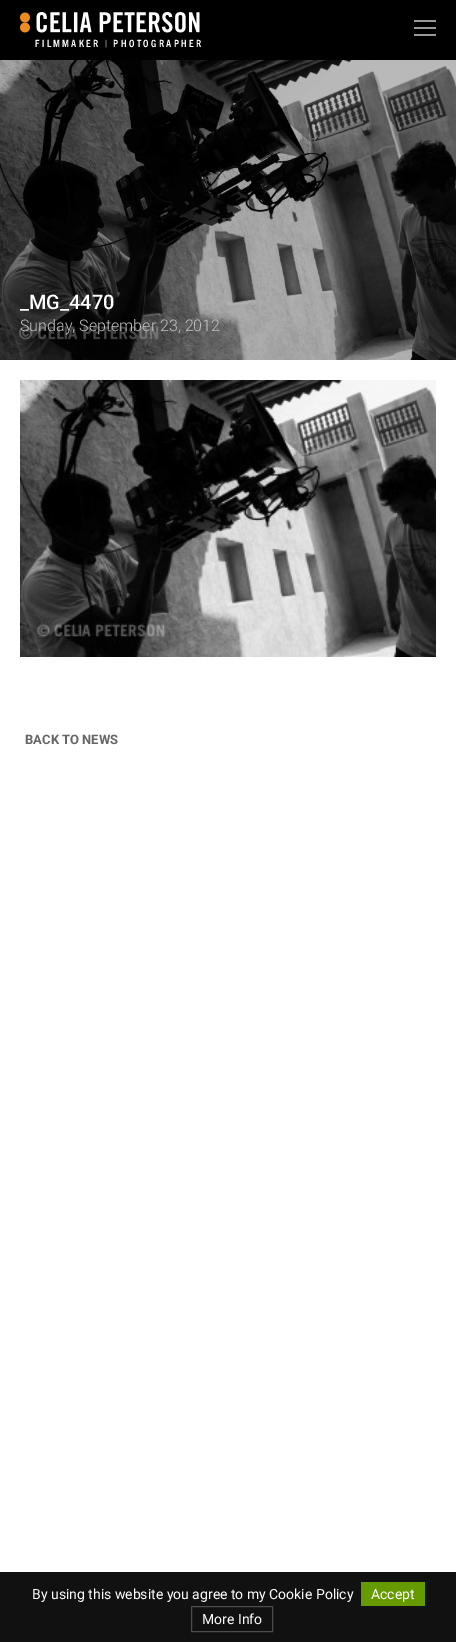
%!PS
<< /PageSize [456 1642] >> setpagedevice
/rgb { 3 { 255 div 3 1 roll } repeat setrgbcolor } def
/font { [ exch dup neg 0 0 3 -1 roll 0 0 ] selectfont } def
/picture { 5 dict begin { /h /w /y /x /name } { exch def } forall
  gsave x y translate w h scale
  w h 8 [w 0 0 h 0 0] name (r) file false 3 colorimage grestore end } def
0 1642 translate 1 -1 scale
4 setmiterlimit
255 255 255 rgb
0 0 456 1642 rectfill
[
  [0 0 456 60 0 0 0]
  [414 20 22 2 153 153 153]
  [414 27 22 2 153 153 153]
  [414 34 22 2 153 153 153]
] { aload pop rgb rectfill } forall
(img/1.rgb) 20 12 180 21 picture
(img/2.rgb) 0 60 456 300 picture
(img/3.rgb) 20 380 416 277 picture
17 17 17 rgb
0 1572 456 70 rectfill
102 155 0 rgb
361 1582 64 24 rectfill
77 77 77 rgb
191.5 1606.5 81 25 rectstroke
/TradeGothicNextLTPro-Bold 10 font
255 255 255 rgb
35 47 moveto 2.3 0 (FILMMAKER | PHOTOGRAPHER) ashow
/Roboto-Medium 20 font
20 309 moveto (_MG_4470) show
/Roboto-Light 16 font
194 194 194 rgb
20 331 moveto (Sunday, September 23, 2012) show
/Roboto-Bold 13 font
102 102 102 rgb
25 744 moveto (BACK TO NEWS) show
/Roboto-Regular 14 font
255 255 255 rgb
[
  [(By using this website you agree to my Cookie Policy) 32 1599]
  [(Accept) 371 1599]
  [(More Info) 202 1624]
] { aload pop moveto show } forall
showpage
